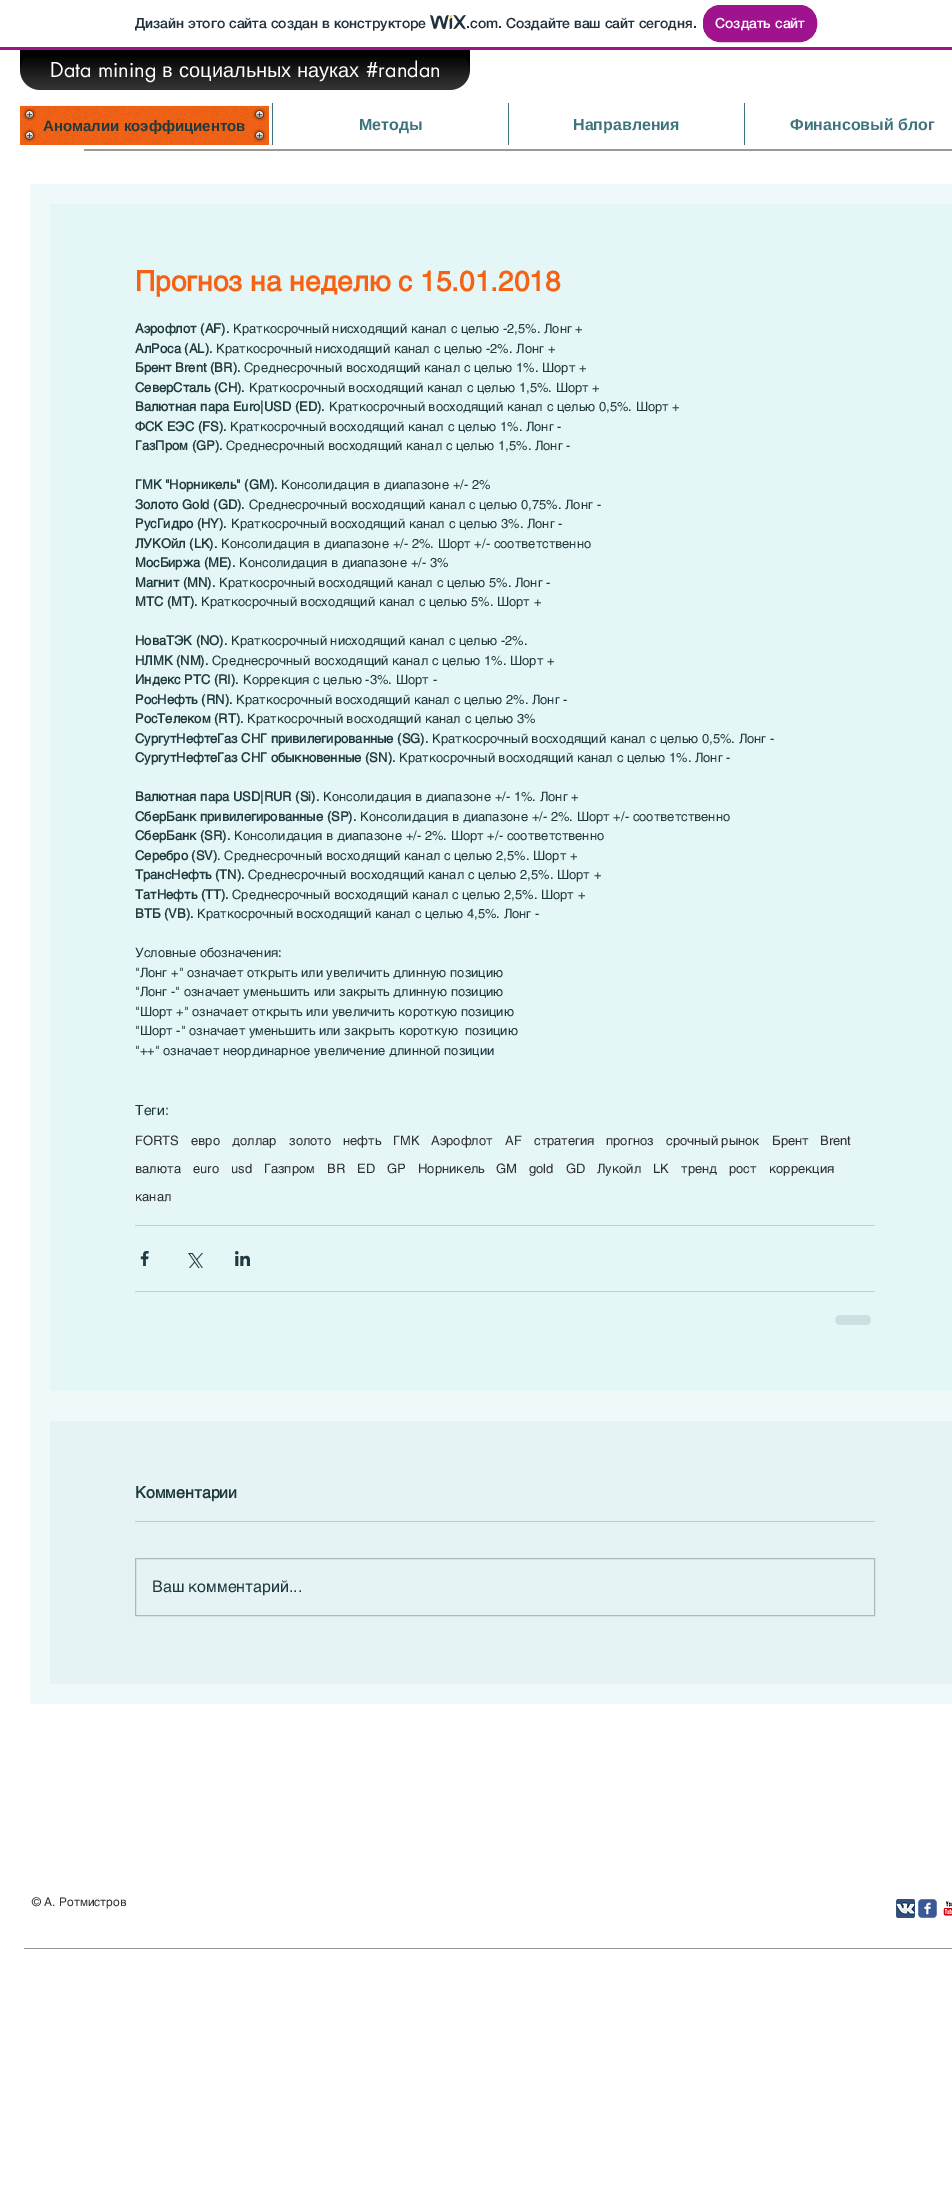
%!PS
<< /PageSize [952 2185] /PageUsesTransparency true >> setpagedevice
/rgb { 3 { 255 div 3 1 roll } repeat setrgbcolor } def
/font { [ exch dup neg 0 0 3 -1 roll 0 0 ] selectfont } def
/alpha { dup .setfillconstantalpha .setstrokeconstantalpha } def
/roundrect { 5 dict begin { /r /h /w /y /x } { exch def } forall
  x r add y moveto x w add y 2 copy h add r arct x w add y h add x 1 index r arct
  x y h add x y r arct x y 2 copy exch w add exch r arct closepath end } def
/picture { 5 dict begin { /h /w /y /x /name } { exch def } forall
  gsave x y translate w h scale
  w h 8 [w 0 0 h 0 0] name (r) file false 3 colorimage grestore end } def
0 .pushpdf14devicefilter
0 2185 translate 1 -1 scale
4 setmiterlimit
255 255 255 rgb
0 0 952 2185 rectfill
160 19 142 rgb
0 47 952 3 rectfill
(img/1.rgb) 430 15 36 15 picture
703.5 5.5 113 36 16.5 roundrect gsave fill grestore
stroke
0 0 0 rgb
20 50 450 20 rectfill
20 50 450 40 20 roundrect fill
(img/2.rgb) 20 57 450 33 picture
245 98 20 rgb
20 105 249 40 rectfill
(img/3.rgb) 20 105 249 40 picture
0.92 alpha
255 255 255 rgb
20 105 249 1 rectfill
1 alpha
(img/4.rgb) 23 108 13 13 picture
(img/5.rgb) 253 108 13 13 picture
(img/6.rgb) 23 129 13 13 picture
(img/7.rgb) 253 129 13 13 picture
[
  [272 103 1 42 62 116 125]
  [508 103 1 42 62 116 125]
  [744 103 1 42 62 116 125]
  [84 149 868 2 153 153 153]
  [30 184 922 1520 240 249 250]
  [50 204 902 1187 229 246 247]
  [135 1225 740 1 189 208 210]
] { aload pop rgb rectfill } forall
(img/8.rgb) 140 1251 9 15 picture
(img/9.rgb) 188 1253 15 15 picture
(img/10.rgb) 235 1251 15 15 picture
135 1291 740 1 rectfill
205 223 225 rgb
835 1315 36 10 5 roundrect fill
229 243 245 rgb
50 1421 902 263 rectfill
189 206 208 rgb
135 1521 740 1 rectfill
175 184 186 rgb
135.5 1558.5 739 57 rectstroke
(img/11.rgb) 896 1899 19 19 picture
(img/12.rgb) 918 1899 19 19 picture
(img/13.rgb) 943 1900 9 16 picture
153 153 153 rgb
24 1948 928 1 rectfill
/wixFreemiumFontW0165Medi-Medium 14 font
32 48 60 rgb
135 28 moveto (Дизайн этого сайта создан в конструкторе) show
/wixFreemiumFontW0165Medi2-Medium 14 font
466 28 moveto (.com) show
/wixFreemiumFontW0165Medi-Medium 14 font
498 28 moveto (. Создайте ваш сайт сегодня.) show
255 255 255 rgb
715 28 moveto (Создать сайт) show
/futura-Regular 20 font
50 77 moveto (Data mining) show
/LiberationSans-Regular 20 font
[
  [(в) 162 77]
  [(социальных) 179 77]
  [(науках) 297 77]
] { aload pop moveto show } forall
/futura-Regular 20 font
366 77 moveto (#randan) show
/LiberationSans-Bold 15 font
31 58 62 rgb
43 131 moveto (Аномалии коэффициентов) show
/LiberationSans-Bold 16 font
62 116 125 rgb
[
  [(Методы) 359 130]
  [(Направления) 573 130]
  [(Финансовый блог) 790 130]
] { aload pop moveto show } forall
/helvetica-Bold 28 font
245 98 20 rgb
135 291 moveto (Прогноз на неделю с 15.01.2018) show
/helvetica-Bold 13 font
31 58 62 rgb
135 333 moveto (Аэрофлот \(AF\).) show
/helvetica-Regular 13 font
233 333 moveto (Краткосрочный нисходящий канал с целью -2,5%. Лонг +) show
/helvetica-Bold 13 font
135 353 moveto (АлРоса \(AL\).) show
/helvetica-Regular 13 font
216 353 moveto (Краткосрочный нисходящий канал с целью -2%. Лонг +) show
/helvetica-Bold 13 font
135 372 moveto (Брент Brent \(BR\).) show
/helvetica-Regular 13 font
244 372 moveto (Среднесрочный восходящий канал с целью 1%. Шорт +) show
/helvetica-Bold 13 font
135 392 moveto (СеверСталь \(CH\).) show
/helvetica-Regular 13 font
249 392 moveto (Краткосрочный восходящий канал с целью 1,5%. Шорт +) show
/helvetica-Bold 13 font
135 411 moveto (Валютная пара Euro|USD \(ED\).) show
/helvetica-Regular 13 font
329 411 moveto (Краткосрочный восходящий канал с целью 0,5%. Шорт +) show
/helvetica-Bold 13 font
135 431 moveto (ФСК ЕЭС \(FS\).) show
/helvetica-Regular 13 font
230 431 moveto (Краткосрочный восходящий канал с целью 1%. Лонг -) show
/helvetica-Bold 13 font
135 450 moveto (ГазПром \(GP\).) show
/helvetica-Regular 13 font
226 450 moveto (Среднесрочный восходящий канал с целью 1,5%. Лонг -) show
/helvetica-Bold 13 font
135 489 moveto (ГМК "Норникель" \(GM\).) show
/helvetica-Regular 13 font
281 489 moveto (Консолидация в диапазоне +/- 2%) show
/helvetica-Bold 13 font
135 509 moveto (Золото Gold \(GD\).) show
/helvetica-Regular 13 font
249 509 moveto (Среднесрочный восходящий канал с целью 0,75%. Лонг -) show
/helvetica-Bold 13 font
135 528 moveto (РусГидро \(HY\).) show
/helvetica-Regular 13 font
231 528 moveto (Краткосрочный восходящий канал с целью 3%. Лонг -) show
/helvetica-Bold 13 font
135 548 moveto (ЛУКОйл \(LK\).) show
/helvetica-Regular 13 font
221 548 moveto (Консолидация в диапазоне +/- 2%. Шорт +/- соответственно) show
/helvetica-Bold 13 font
135 567 moveto (МосБиржа \(ME\).) show
/helvetica-Regular 13 font
239 567 moveto (Консолидация в диапазоне +/- 3%) show
/helvetica-Bold 13 font
135 587 moveto (Магнит \(MN\).) show
/helvetica-Regular 13 font
219 587 moveto (Краткосрочный восходящий канал с целью 5%. Лонг -) show
/helvetica-Bold 13 font
135 606 moveto (МТС \(MT\).) show
/helvetica-Regular 13 font
201 606 moveto (Краткосрочный восходящий канал с целью 5%. Шорт +) show
/helvetica-Bold 13 font
135 645 moveto (НоваТЭК \(NO\).) show
/helvetica-Regular 13 font
231 645 moveto (Краткосрочный нисходящий канал с целью -2%.) show
/helvetica-Bold 13 font
135 665 moveto (НЛМК \(NM\).) show
/helvetica-Regular 13 font
212 665 moveto (Среднесрочный восходящий канал с целью 1%. Шорт +) show
/helvetica-Bold 13 font
135 684 moveto (Индекс РТС \(RI\).) show
/helvetica-Regular 13 font
243 684 moveto (Коррекция с целью -3%. Шорт -) show
/helvetica-Bold 13 font
135 704 moveto (РосНефть \(RN\).) show
/helvetica-Regular 13 font
236 704 moveto (Краткосрочный восходящий канал с целью 2%. Лонг -) show
/helvetica-Bold 13 font
135 723 moveto (РосТелеком \(RT\).) show
/helvetica-Regular 13 font
247 723 moveto (Краткосрочный восходящий канал с целью 3%) show
/helvetica-Bold 13 font
135 743 moveto (СургутНефтеГаз СНГ привилегированные \(SG\).) show
/helvetica-Regular 13 font
432 743 moveto (Краткосрочный восходящий канал с целью 0,5%. Лонг -) show
/helvetica-Bold 13 font
135 762 moveto (СургутНефтеГаз СНГ обыкновенные \(SN\).) show
/helvetica-Regular 13 font
399 762 moveto (Краткосрочный восходящий канал с целью 1%. Лонг -) show
/helvetica-Bold 13 font
135 801 moveto (Валютная пара USD|RUR \(Si\).) show
/helvetica-Regular 13 font
323 801 moveto (Консолидация в диапазоне +/- 1%. Лонг +) show
/helvetica-Bold 13 font
135 821 moveto (СберБанк привилегированные \(SP\).) show
/helvetica-Regular 13 font
360 821 moveto (Консолидация в диапазоне +/- 2%. Шорт +/- соответственно) show
/helvetica-Bold 13 font
135 840 moveto (СберБанк \(SR\).) show
/helvetica-Regular 13 font
234 840 moveto (Консолидация в диапазоне +/- 2%. Шорт +/- соответственно) show
/helvetica-Bold 13 font
135 860 moveto (Серебро \(SV\)) show
/helvetica-Regular 13 font
217 860 moveto (. Среднесрочный восходящий канал с целью 2,5%. Шорт +) show
/helvetica-Bold 13 font
135 879 moveto (ТрансНефть \(TN\).) show
/helvetica-Regular 13 font
248 879 moveto (Среднесрочный восходящий канал с целью 2,5%. Шорт +) show
/helvetica-Bold 13 font
135 899 moveto (ТатНефть \(TT\).) show
/helvetica-Regular 13 font
232 899 moveto (Среднесрочный восходящий канал с целью 2,5%. Шорт +) show
/helvetica-Bold 13 font
135 918 moveto (ВТБ \(VB\).) show
/helvetica-Regular 13 font
[
  [(Краткосрочный восходящий канал с целью 4,5%. Лонг -) 197 918]
  [(Условные обозначения:) 135 957]
  [("Лонг +" означает открыть или увеличить длинную позицию) 135 977]
  [("Лонг -" означает уменьшить или закрыть длинную позицию) 135 996]
  [("Шорт +" означает открыть или увеличить короткую позицию) 135 1016]
  [("Шорт -" означает уменьшить или закрыть короткую  позицию) 135 1035]
  [("++" означает неординарное увеличение длинной позиции) 135 1055]
] { aload pop moveto show } forall
/helvetica-Regular 14 font
135 1115 moveto (Теги:) show
/helvetica-Regular 13 font
48 48 48 rgb
[
  [(FORTS) 135 1145]
  [(евро) 191 1145]
  [(доллар) 232 1145]
  [(золото) 289 1145]
  [(нефть) 343 1145]
  [(ГМК) 393 1145]
  [(Аэрофлот) 431 1145]
  [(AF) 505 1145]
  [(стратегия) 534 1145]
  [(прогноз) 606 1145]
  [(срочный рынок) 666 1145]
  [(Брент) 772 1145]
  [(Brent) 820 1145]
  [(валюта) 135 1173]
  [(euro) 193 1173]
  [(usd) 231 1173]
  [(Газпром) 264 1173]
  [(BR) 327 1173]
  [(ED) 357 1173]
  [(GP) 387 1173]
  [(Норникель) 418 1173]
  [(GM) 496 1173]
  [(gold) 529 1173]
  [(GD) 566 1173]
  [(Лукойл) 597 1173]
  [(LK) 653 1173]
] { aload pop moveto show } forall
gsave
681 1161 36 16 rectclip
681 1173 moveto (тренд) show
grestore
[
  [(рост) 729 1173]
  [(коррекция) 769 1173]
  [(канал) 135 1201]
] { aload pop moveto show } forall
/helvetica-Bold 16 font
31 58 62 rgb
135 1498 moveto (Комментарии) show
/helvetica-Regular 16 font
152 1592 moveto (Ваш комментарий...) show
/helvetica-Regular 12 font
48 48 48 rgb
32 1906 moveto (© А. Ротмистров) show
.poppdf14devicefilter showpage
